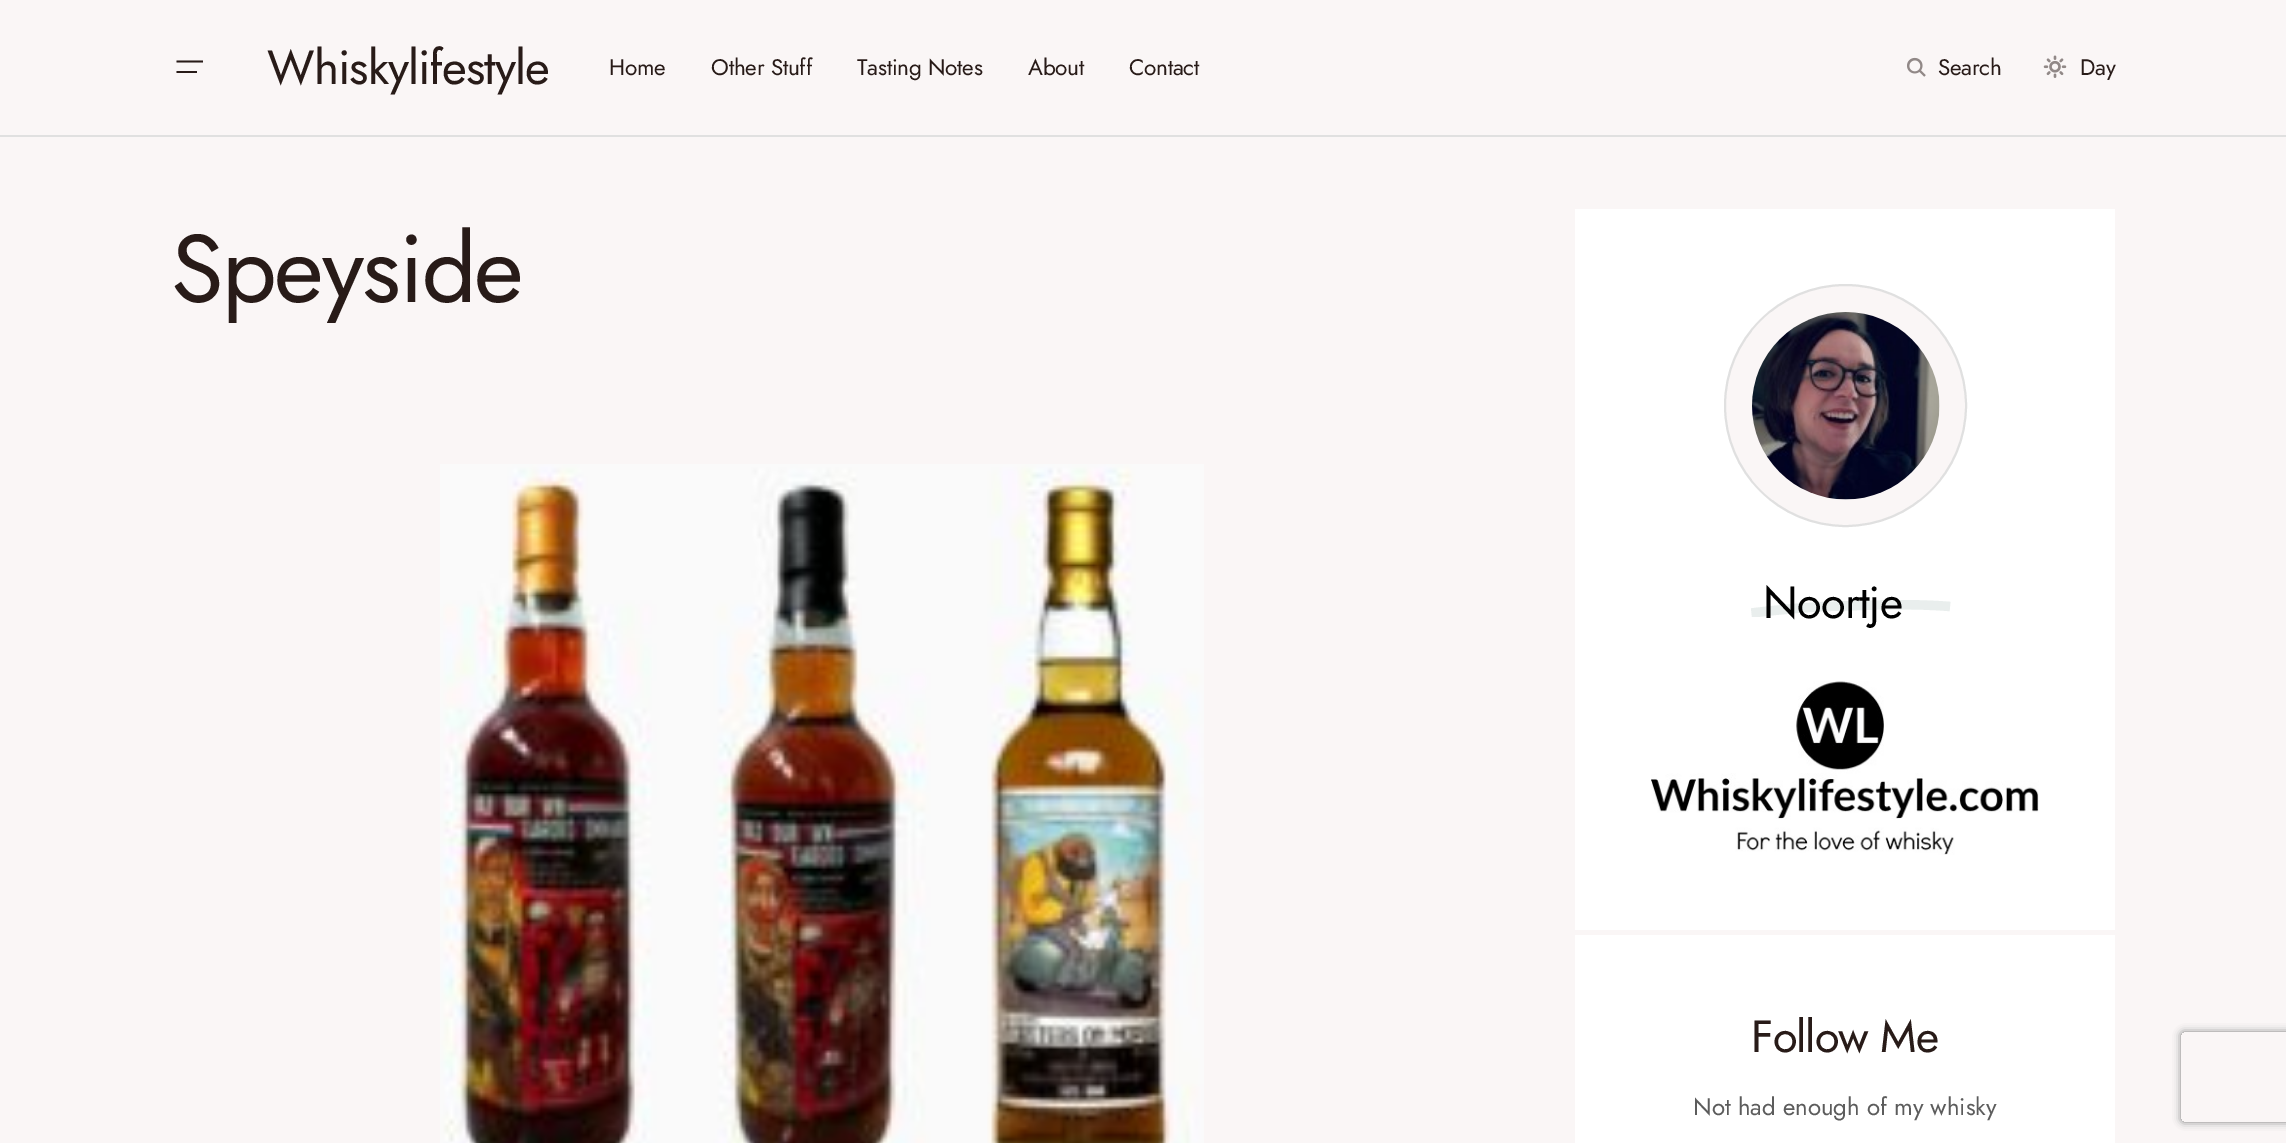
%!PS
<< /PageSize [2286 1143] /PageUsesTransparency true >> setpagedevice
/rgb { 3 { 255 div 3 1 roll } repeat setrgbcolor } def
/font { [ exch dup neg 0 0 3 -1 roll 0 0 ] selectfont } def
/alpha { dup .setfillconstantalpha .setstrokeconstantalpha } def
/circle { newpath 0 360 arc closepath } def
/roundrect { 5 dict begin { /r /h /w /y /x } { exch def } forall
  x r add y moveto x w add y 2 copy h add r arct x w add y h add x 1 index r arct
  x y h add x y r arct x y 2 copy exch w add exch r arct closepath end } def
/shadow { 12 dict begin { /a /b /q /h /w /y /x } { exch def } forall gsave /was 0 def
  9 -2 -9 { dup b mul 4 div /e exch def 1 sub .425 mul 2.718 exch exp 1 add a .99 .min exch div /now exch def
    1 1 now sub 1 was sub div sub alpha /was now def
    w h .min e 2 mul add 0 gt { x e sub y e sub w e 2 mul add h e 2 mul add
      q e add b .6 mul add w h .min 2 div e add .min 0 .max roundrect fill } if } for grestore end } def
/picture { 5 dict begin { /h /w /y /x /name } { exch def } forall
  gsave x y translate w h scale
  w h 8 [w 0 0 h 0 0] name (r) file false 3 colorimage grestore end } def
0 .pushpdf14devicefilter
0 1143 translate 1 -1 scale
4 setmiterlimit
250 246 246 rgb
0 0 2286 1143 rectfill
224 224 224 rgb
0 135 2286 2 rectfill
40 27 24 rgb
176.5 60.5 moveto 176.5 62.5 lineto 203 62.5 lineto 203 60.5 lineto closepath 176.5 71 moveto 176.5 73 lineto 197 73 lineto 197 71 lineto closepath fill
(img/1.rgb) 1907 57 19 20 picture
(img/2.rgb) 2043 55 24 23 picture
(img/3.rgb) 440 464 764 679 picture
255 255 255 rgb
1575 209 540 721 rectfill
250 246 246 rgb
1845.5 405.5 120.5 circle gsave fill grestore
224 224 224 rgb
2 setlinewidth
stroke
(img/4.rgb) 1752 312 188 188 picture
gsave
1751 600 201 17 rectclip
233 238 237 rgb
9.4 setlinewidth
1751.5 613 moveto 1781.5 609.5 1811 606.5 1841.5 606 curveto 1877 605 1914 603.5 1950 606.5 curveto stroke
grestore
(img/5.rgb) 1651 681 388 174 picture
255 255 255 rgb
1575 935 540 208 rectfill
gsave
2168 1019 moveto 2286 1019 lineto 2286 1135 lineto 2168 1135 lineto closepath 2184 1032 moveto 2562 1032 lineto 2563.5 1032 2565 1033.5 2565 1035 curveto 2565 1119 lineto 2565 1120.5 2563.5 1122 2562 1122 curveto 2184 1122 lineto 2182.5 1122 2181 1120.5 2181 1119 curveto 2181 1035 lineto 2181 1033.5 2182.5 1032 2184 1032 curveto closepath eoclip newpath
128 128 128 rgb
2181 1032 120 90 3 4 1 shadow
grestore
/Jost-Regular 48 font
40 27 24 rgb
267 84 moveto -1 0 (Whiskylifestyle) ashow
/Jost-Regular 22.5 font
609 75 moveto -0.25 0 (Home) ashow
711 75 moveto -0.25 0 (Other Stuff) ashow
857 75 moveto -0.25 0 (Tasting Notes) ashow
1028 75 moveto -0.25 0 (About) ashow
1129 75 moveto -0.25 0 (Contact) ashow
1938 75 moveto -0.25 0 (Search) ashow
2080 75 moveto -0.25 0 (Day) ashow
/Jost-Regular 96 font
171 302 moveto -2 0 (Speyside) ashow
/Jost-Regular 45 font
0 0 0 rgb
1763 618 moveto -0.75 0 (Noortje) ashow
40 27 24 rgb
1751 1052 moveto -1 0 (Follow Me) ashow
/Jost-Regular 24 font
92 92 92 rgb
1693 1115 moveto (Not had enough of my whisky) show
.poppdf14devicefilter showpage
